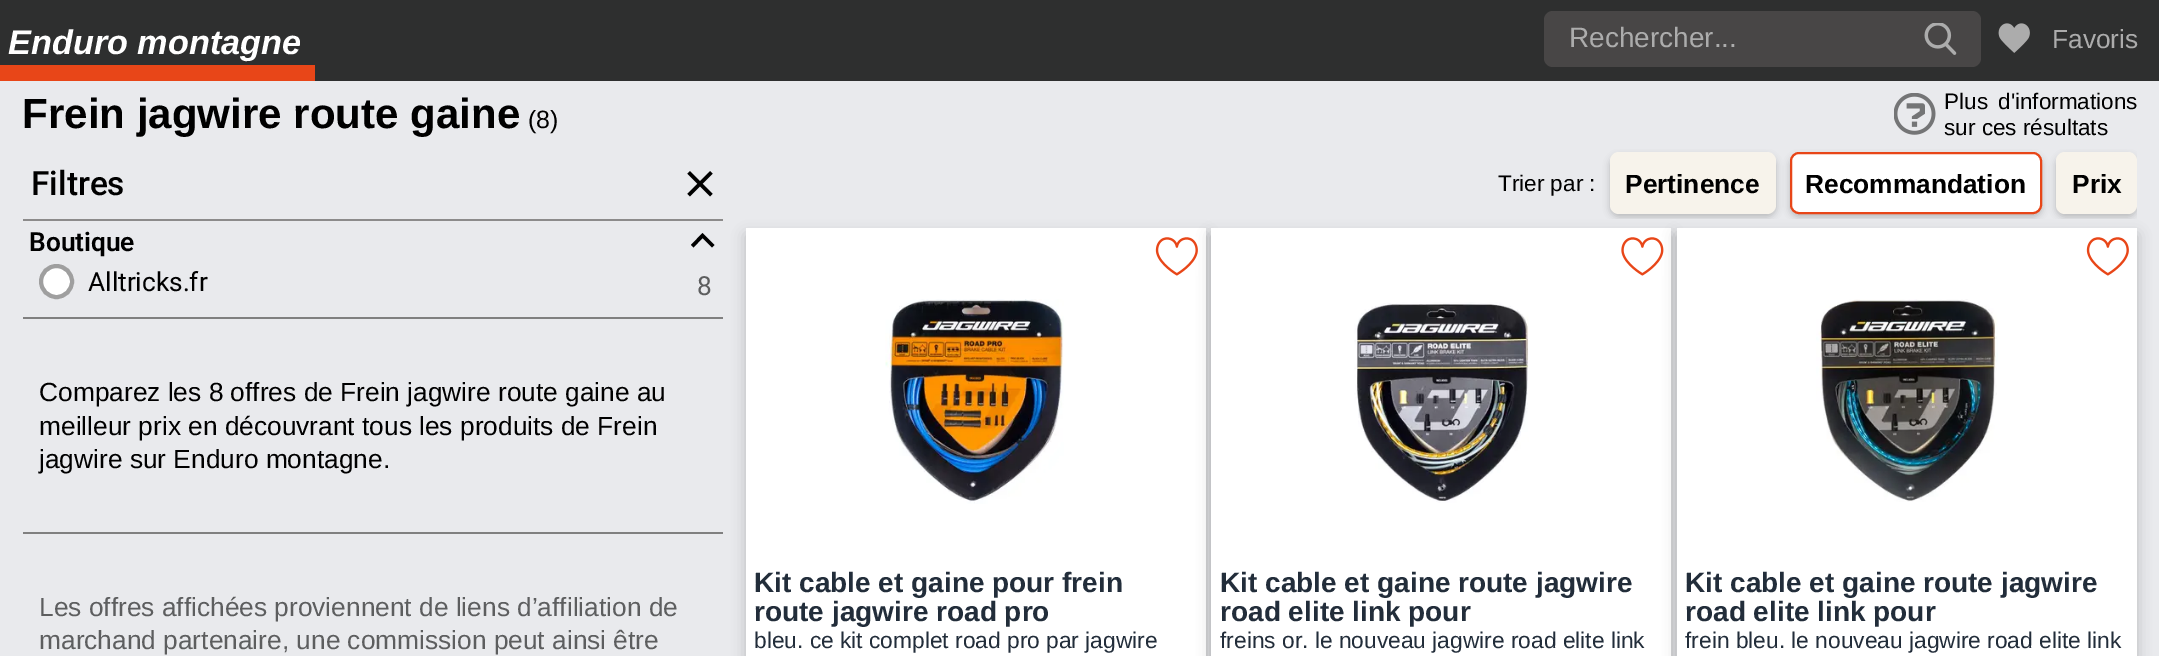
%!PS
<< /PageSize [2159 656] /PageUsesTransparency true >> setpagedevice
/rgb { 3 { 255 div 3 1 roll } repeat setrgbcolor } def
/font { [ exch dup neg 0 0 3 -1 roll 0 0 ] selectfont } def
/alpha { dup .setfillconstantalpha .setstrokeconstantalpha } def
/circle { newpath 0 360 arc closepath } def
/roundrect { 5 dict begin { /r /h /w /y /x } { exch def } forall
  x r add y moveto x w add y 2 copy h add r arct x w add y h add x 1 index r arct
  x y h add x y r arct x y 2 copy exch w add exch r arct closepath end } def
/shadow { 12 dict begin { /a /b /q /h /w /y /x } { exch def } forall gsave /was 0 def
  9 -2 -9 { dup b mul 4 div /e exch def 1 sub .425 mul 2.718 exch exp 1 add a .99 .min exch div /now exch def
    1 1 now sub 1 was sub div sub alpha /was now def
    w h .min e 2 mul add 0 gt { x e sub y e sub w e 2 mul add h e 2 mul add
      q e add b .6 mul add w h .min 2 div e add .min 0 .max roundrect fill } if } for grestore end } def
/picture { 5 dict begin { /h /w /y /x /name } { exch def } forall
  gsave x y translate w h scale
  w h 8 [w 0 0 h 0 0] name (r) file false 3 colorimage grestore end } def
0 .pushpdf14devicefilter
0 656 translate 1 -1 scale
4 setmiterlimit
233 234 237 rgb
0 0 2159 656 rectfill
46 47 47 rgb
0 0 2159 81 rectfill
232 70 24 rgb
0 65 315 16 rectfill
72 70 70 rgb
1544 11 437 56 9 roundrect fill
(img/1.rgb) 1924 23 33 32 picture
(img/2.rgb) 1998 23 32 30 picture
(img/3.rgb) 1894 93 42 42 picture
(img/4.rgb) 687 171 26 26 picture
gsave
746 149 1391 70 rectclip
0 0 0 rgb
1610 156 166 61 9 3.5 0.2 shadow
grestore
247 243 235 rgb
1610 152 166 62 9 roundrect fill
gsave
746 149 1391 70 rectclip
0 0 0 rgb
1790 156 252 61 9 3.5 0.2 shadow
grestore
255 255 255 rgb
1791 153 250 60 8 roundrect gsave fill grestore
232 70 24 rgb
2 setlinewidth
stroke
gsave
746 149 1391 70 rectclip
0 0 0 rgb
2056 156 81 61 9 3.5 0.2 shadow
grestore
247 243 235 rgb
2056 152 81 62 9 roundrect fill
140 139 139 rgb
23 219 700 2 rectfill
0 0 0 rgb
702.5 238 moveto 693.5 247.5 lineto 691 245 lineto 702.5 233 lineto 714.5 245 lineto 712 247.5 lineto closepath fill
255 255 255 rgb
56.5 281.5 15.5 circle gsave fill grestore
159 159 159 rgb
4 setlinewidth
stroke
128 128 128 rgb
23 317 700 2 rectfill
23 532 700 2 rectfill
0 0 0 rgb
746 235 460 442 0 7 0.2 shadow
255 255 255 rgb
746 228 460 428 rectfill
0 0 0 rgb
1211 235 460 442 0 7 0.2 shadow
(img/5.rgb) 1155 237 43 39 picture
(img/6.rgb) 885 299 179 205 picture
255 255 255 rgb
1211 228 460 428 rectfill
0 0 0 rgb
1677 235 460 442 0 7 0.2 shadow
(img/7.rgb) 1621 237 43 39 picture
(img/8.rgb) 1354 302 175 201 picture
255 255 255 rgb
1677 228 460 428 rectfill
(img/9.rgb) 2086 237 43 39 picture
(img/10.rgb) 1816 299 182 203 picture
/LiberationSans-BoldItalic 34.25 font
8 54 moveto (Enduro montagne) show
/LiberationSans-Regular 28 font
172 172 172 rgb
1569 47 moveto (Rechercher...) show
/LiberationSans-Regular 26.3 font
2052 48 moveto (Favoris) show
/LiberationSans-Bold 42.1 font
0 0 0 rgb
22 128 moveto (Frein jagwire route gaine) show
/LiberationSans-Regular 25 font
528 128 moveto (\(8\)) show
/LiberationSans-Regular 22.5 font
1944 109 moveto 4 0 32 (Plus d'informations) widthshow
1944 135 moveto (sur ces résultats) show
/Roboto-Medium 33.5 font
31 195 moveto (Filtres) show
/LiberationSans-Regular 22.5 font
1498 191 moveto (Trier par :) show
/LiberationSans-Bold 26.3 font
[
  [(Pertinence) 1625 193]
  [(Recommandation) 1805 193]
  [(Prix) 2072 193]
] { aload pop moveto show } forall
/Roboto-SemiBold 26.3 font
29 251 moveto (Boutique) show
/Roboto-Regular 26.3 font
88 291 moveto (Alltricks.fr) show
93 94 95 rgb
697 295 moveto (8) show
/LiberationSans-Regular 26.3 font
0 0 0 rgb
[
  [(Comparez les 8 offres de Frein jagwire route gaine au) 39 401]
  [(meilleur prix en découvrant tous les produits de Frein) 39 435]
  [(jagwire sur Enduro montagne.) 39 468]
] { aload pop moveto show } forall
93 94 95 rgb
39 616 moveto (Les offres affichées proviennent de liens d’affiliation de) show
39 649 moveto (marchand partenaire, une commission peut ainsi être) show
/LiberationSans-Bold 28 font
34 45 58 rgb
754 592 moveto (Kit cable et gaine pour frein) show
754 621 moveto (route jagwire road pro) show
/LiberationSans-Regular 22.75 font
754 648 moveto (bleu. ce kit complet road pro par jagwire) show
/LiberationSans-Bold 28 font
1220 592 moveto (Kit cable et gaine route jagwire) show
1220 621 moveto (road elite link pour) show
/LiberationSans-Regular 22.75 font
1220 648 moveto (freins or. le nouveau jagwire road elite link) show
/LiberationSans-Bold 28 font
1685 592 moveto (Kit cable et gaine route jagwire) show
1685 621 moveto (road elite link pour) show
/LiberationSans-Regular 22.75 font
1685 648 moveto (frein bleu. le nouveau jagwire road elite link) show
.poppdf14devicefilter showpage
